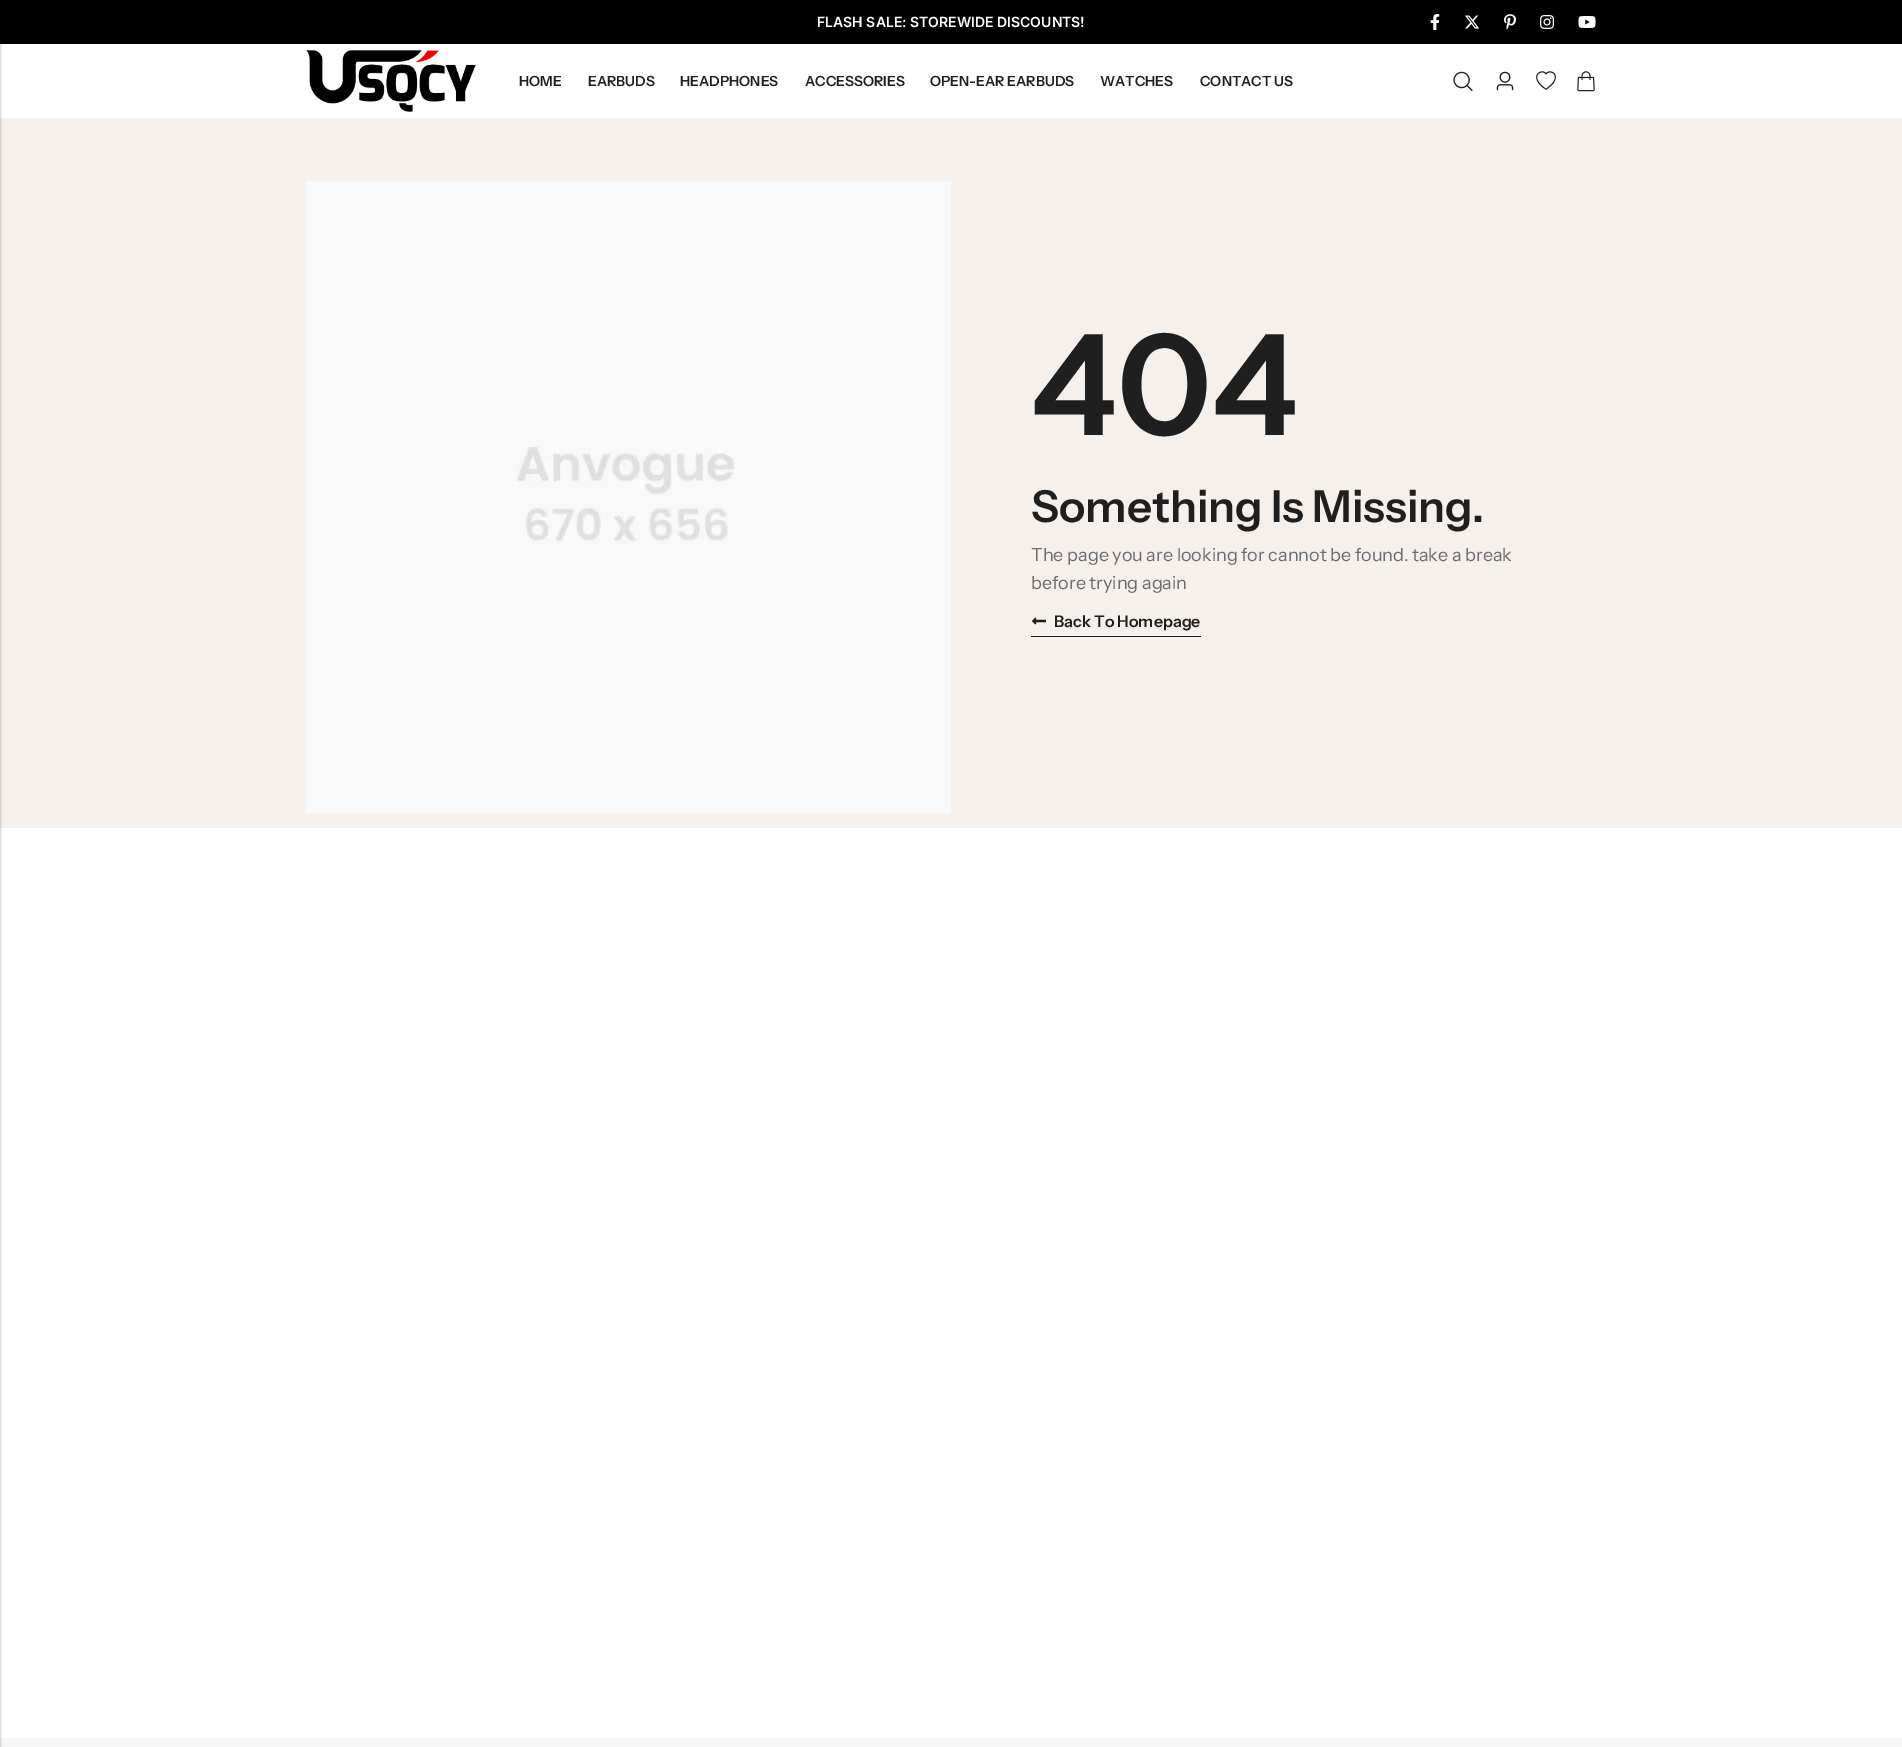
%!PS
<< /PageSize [1902 1747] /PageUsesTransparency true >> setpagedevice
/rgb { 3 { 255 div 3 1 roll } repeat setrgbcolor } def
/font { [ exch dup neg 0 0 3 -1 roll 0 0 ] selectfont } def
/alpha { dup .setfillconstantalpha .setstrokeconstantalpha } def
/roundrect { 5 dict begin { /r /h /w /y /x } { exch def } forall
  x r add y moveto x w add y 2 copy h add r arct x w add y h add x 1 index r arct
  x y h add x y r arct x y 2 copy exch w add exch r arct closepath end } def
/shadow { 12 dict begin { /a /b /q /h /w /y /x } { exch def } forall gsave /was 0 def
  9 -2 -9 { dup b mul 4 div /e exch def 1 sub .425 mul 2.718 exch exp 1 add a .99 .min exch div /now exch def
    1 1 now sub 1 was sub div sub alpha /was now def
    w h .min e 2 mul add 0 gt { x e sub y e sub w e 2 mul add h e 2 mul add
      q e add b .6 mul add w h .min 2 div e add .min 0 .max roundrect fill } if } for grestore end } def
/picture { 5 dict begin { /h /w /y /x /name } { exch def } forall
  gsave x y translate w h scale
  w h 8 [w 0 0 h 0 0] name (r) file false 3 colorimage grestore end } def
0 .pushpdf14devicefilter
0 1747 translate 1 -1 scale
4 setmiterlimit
255 255 255 rgb
0 0 1902 1747 rectfill
[
  [0 0 1902 44 0 0 0]
  [0 118 1902 710 246 240 236]
  [0 1738 1902 9 247 247 247]
] { aload pop rgb rectfill } forall
0 0 0 rgb
-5 0 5 1747 0 1.5 0.15 shadow
-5 0 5 1747 0 1.5 0.15 shadow
(img/1.rgb) 1430 14 10 16 picture
(img/2.rgb) 1465 15 15 14 picture
(img/3.rgb) 1504 14 12 16 picture
(img/4.rgb) 1540 15 14 14 picture
(img/5.rgb) 1578 16 18 12 picture
(img/6.rgb) 306 50 170 62 picture
(img/7.rgb) 1453 71 20 20 picture
(img/8.rgb) 1496 71 18 20 picture
(img/9.rgb) 1536 71 20 19 picture
(img/10.rgb) 1577 71 18 21 picture
(img/11.rgb) 306 181 645 632 picture
(img/12.rgb) 1032 617 14 8 picture
31 31 31 rgb
1031 636 170 1 rectfill
/Inter-SemiBold 14 font
255 255 255 rgb
817 27 moveto (FLASH SALE: STOREWIDE DISCOUNTS!) show
/InstrumentSans-SemiBold 14 font
31 31 31 rgb
[
  [(HOME) 519 86]
  [(EARBUDS) 588 86]
  [(HEADPHONES) 680 86]
  [(ACCESSORIES) 805 86]
  [(OPEN-EAR EARBUDS) 930 86]
  [(WATCHES) 1100 86]
  [(CONTACT US) 1200 86]
] { aload pop moveto show } forall
/InstrumentSans-SemiBold 140 font
1031 435 moveto (404) show
/InstrumentSans-SemiBold 44 font
1031 522 moveto (Something Is Missing.) show
/InstrumentSans-Regular 18 font
105 108 112 rgb
1031 561 moveto (The page you are looking for cannot be found. take a break) show
1031 589 moveto (before trying again) show
/InstrumentSans-SemiBold 16 font
31 31 31 rgb
1054 627 moveto (Back To Homepage) show
.poppdf14devicefilter showpage
